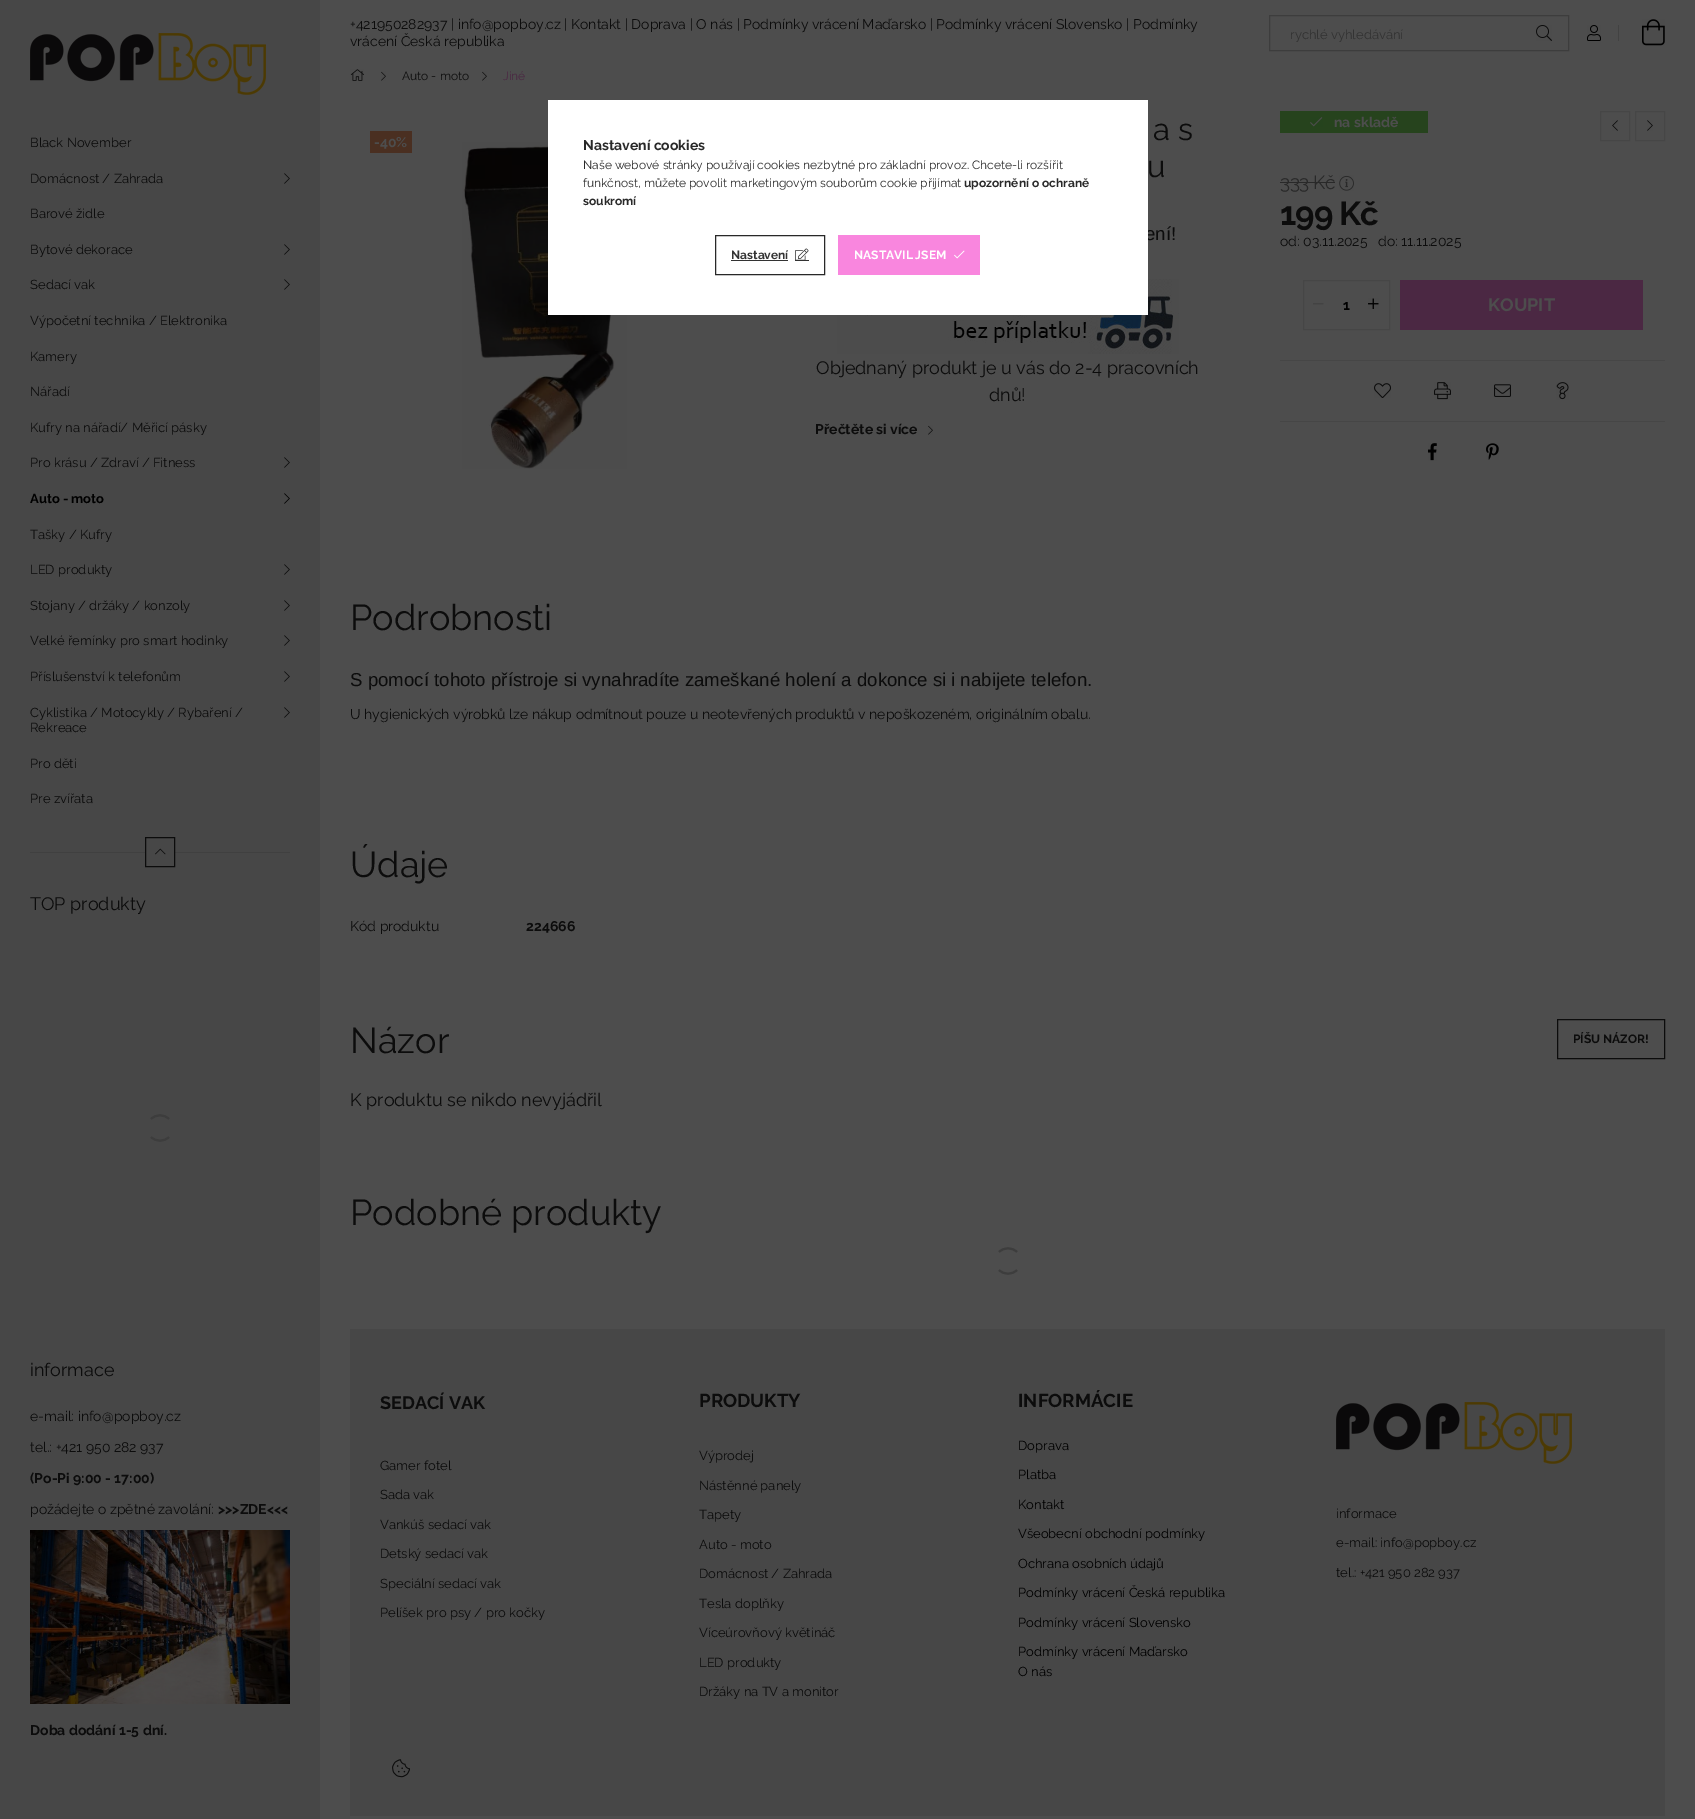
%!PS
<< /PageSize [1695 1819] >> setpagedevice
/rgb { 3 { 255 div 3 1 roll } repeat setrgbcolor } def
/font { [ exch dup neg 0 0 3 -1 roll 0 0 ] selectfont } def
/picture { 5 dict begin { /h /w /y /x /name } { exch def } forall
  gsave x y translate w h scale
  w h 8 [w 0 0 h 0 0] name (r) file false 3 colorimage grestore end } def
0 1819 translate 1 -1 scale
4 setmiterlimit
77 77 77 rgb
0 0 1695 1819 rectfill
71 71 71 rgb
0 0 320 1819 rectfill
(img/1.rgb) 30 33 236 62 picture
(img/2.rgb) 284 173 6 11 picture
(img/2.rgb) 284 244 6 11 picture
(img/2.rgb) 284 279 6 11 picture
(img/2.rgb) 284 457 6 11 picture
(img/3.rgb) 284 493 6 11 picture
(img/2.rgb) 284 564 6 11 picture
(img/2.rgb) 284 600 6 11 picture
(img/2.rgb) 284 635 6 11 picture
(img/2.rgb) 284 671 6 11 picture
(img/2.rgb) 284 707 6 11 picture
64 64 64 rgb
30 852 260 1 rectfill
71 71 71 rgb
146 852 28 1 rectfill
12 12 12 rgb
145.5 837.5 29 29 rectstroke
(img/4.rgb) 155 848 11 7 picture
61 61 61 rgb
2 setlinewidth
151 1119 moveto 156 1114 164 1114 169 1119 curveto 169 1137 moveto 164 1142 156 1142 151 1137 curveto stroke
(img/5.rgb) 30 1530 260 174 picture
1 setlinewidth
1269.5 15.5 299 35 rectstroke
(img/6.rgb) 1536 25 16 16 picture
(img/7.rgb) 1587 25 14 16 picture
66 66 66 rgb
1618 25 1 16 rectfill
(img/8.rgb) 1642 19 23 27 picture
(img/9.rgb) 350 69 14 12 picture
(img/10.rgb) 381 71 5 10 picture
(img/10.rgb) 482 71 5 10 picture
74 47 33 rgb
370 131 42 22 rectfill
(img/11.rgb) 462 142 165 327 picture
(img/12.rgb) 837 279 342 75 picture
(img/10.rgb) 928 425 5 10 picture
38 67 29 rgb
1280 111 148 22 rectfill
(img/13.rgb) 1310 117 13 10 picture
70 70 70 rgb
1600.5 111.5 29 29 rectstroke
(img/14.rgb) 1612 120 6 11 picture
1635.5 111.5 29 29 rectstroke
(img/15.rgb) 1647 120 6 11 picture
41 41 41 rgb
1280 182 55 1 rectfill
(img/16.rgb) 1339 175 15 16 picture
70 70 70 rgb
1303.5 280.5 86 49 rectstroke
(img/17.rgb) 1313 303 11 2 picture
(img/18.rgb) 1368 298 11 11 picture
75 40 67 rgb
1400 280 243 50 rectfill
70 70 70 rgb
1280 360 385 1 rectfill
(img/19.rgb) 1374 383 17 15 picture
(img/20.rgb) 1434 382 17 18 picture
(img/21.rgb) 1494 384 17 13 picture
(img/22.rgb) 1556 382 13 18 picture
1280 421 385 1 rectfill
(img/23.rgb) 1428 443 9 18 picture
(img/24.rgb) 1486 443 13 17 picture
12 12 12 rgb
1557.5 1019.5 107 39 rectstroke
61 61 61 rgb
2 setlinewidth
999 1252 moveto 1004 1247 1012 1247 1017 1252 curveto 1017 1270 moveto 1012 1275 1004 1275 999 1270 curveto stroke
71 71 71 rgb
350 1329 1315 487 rectfill
(img/1.rgb) 1336 1402 236 62 picture
(img/25.rgb) 392 1759 18 19 picture
/Raleway-Regular 13 font
12 12 12 rgb
[
  [(Black November) 30 147]
  [(Domácnost / Zahrada) 30 183]
  [(Barové židle) 30 218]
  [(Bytové dekorace) 30 254]
  [(Sedací vak) 30 289]
  [(Výpočetní technika / Elektronika) 30 325]
  [(Kamery) 30 361]
  [(Nářadí) 30 396]
  [(Kufry na nářadí/ Měřicí pásky) 30 432]
  [(Pro krásu / Zdraví / Fitness) 30 467]
] { aload pop moveto show } forall
/Raleway-Bold 13 font
0 0 0 rgb
30 503 moveto (Auto - moto) show
/Raleway-Regular 13 font
12 12 12 rgb
[
  [(Tašky / Kufry) 30 539]
  [(LED produkty) 30 574]
  [(Stojany / držáky / konzoly) 30 610]
  [(Velké řemínky pro smart hodinky) 30 645]
  [(Příslušenství k telefonům) 30 681]
  [(Cyklistika / Motocykly / Rybaření /) 30 717]
  [(Rekreace) 30 732]
  [(Pro děti) 30 768]
  [(Pre zvířata) 30 803]
] { aload pop moveto show } forall
/Raleway-Regular 18 font
30 910 moveto (TOP produkty) show
30 1376 moveto (informace) show
/Raleway-Regular 14 font
30 1421 moveto (e-mail: info@popboy.cz) show
30 1452 moveto (tel.: +421 950 282 937) show
/Raleway-Bold 14 font
30 1483 moveto (\(Po-Pi 9:00 - 17:00\)) show
/Raleway-Regular 14 font
30 1514 moveto (požádejte o zpětné zavolání:) show
/Raleway-Bold 14 font
218 1514 moveto (>>>ZDE<<<) show
30 1735 moveto (Doba dodání 1-5 dní.) show
/Raleway-Regular 14 font
350 29 moveto (+421950282937 | info@popboy.cz | Kontakt | Doprava | O nás | Podmínky vrácení Maďarsko | Podmínky vrácení Slovensko | Podmínky) show
350 46 moveto (vrácení Česká republika) show
/Raleway-Regular 13 font
51 51 51 rgb
1290 39 moveto (rychlé vyhledávání) show
/Raleway-Regular 12 font
12 12 12 rgb
402 80 moveto (Auto - moto) show
75 40 67 rgb
503 80 moveto (Jiné) show
/Raleway-Bold 14 font
77 77 77 rgb
374 147 moveto (-40%) show
/Raleway-Regular 31 font
12 12 12 rgb
1153 140 moveto (a s) show
1147 177 moveto (u) show
/LiberationSans-Regular 18.65 font
1145 240 moveto (ení!) show
/Raleway-Regular 18 font
816 374 moveto (Objednaný produkt je u vás do 2-4 pracovních) show
989 401 moveto (dnů!) show
/Raleway-Bold 14 font
815 434 moveto (Přečtěte si více) show
77 77 77 rgb
1334 127 moveto (na skladě) show
/Raleway-Regular 19 font
41 41 41 rgb
1280 189 moveto -0.5 0 (333 Kč) ashow
/Raleway-Bold 33 font
12 12 12 rgb
1280 225 moveto -1 0 (199 Kč) ashow
/Raleway-Regular 14 font
1280 246 moveto (od: 03.11.2025) show
1378 246 moveto (do: 11.11.2025) show
/Raleway-Bold 14 font
0 0 0 rgb
1343 310 moveto (1) show
/Raleway-Bold 18 font
77 77 77 rgb
1488 311 moveto (KOUPIT) show
/Raleway-Regular 36 font
12 12 12 rgb
350 630 moveto (Podrobnosti) show
/LiberationSans-Regular 18.65 font
350 686 moveto (S pomocí tohoto přístroje si vynahradíte zameškané holení a dokonce si i nabijete telefon.) show
/Raleway-Regular 14 font
350 719 moveto (U hygienických výrobků lze nákup odmítnout pouze u neotevřených produktů v nepoškozeném, originálním obalu.) show
/Raleway-Regular 36 font
350 877 moveto (Údaje) show
/Raleway-Regular 14 font
350 931 moveto (Kód produktu) show
/Raleway-Bold 14 font
526 931 moveto (224666) show
/Raleway-Regular 36 font
350 1053 moveto (Názor) show
/Raleway-Bold 12 font
1573 1043 moveto (PÍŠU NÁZOR!) show
/Raleway-Regular 18 font
350 1106 moveto (K produktu se nikdo nevyjádřil) show
/Raleway-Regular 36 font
350 1225 moveto (Podobné produkty) show
/Raleway-Bold 18 font
380 1409 moveto (SEDACÍ VAK) show
/Raleway-Regular 13 font
[
  [(Gamer fotel) 380 1470]
  [(Sada vak) 380 1499]
  [(Vankúš sedací vak) 380 1529]
  [(Detský sedací vak) 380 1558]
  [(Speciální sedací vak) 380 1588]
  [(Pelíšek pro psy / pro kočky) 380 1617]
] { aload pop moveto show } forall
/Raleway-Bold 18.65 font
699 1407 moveto (PRODUKTY) show
/Raleway-Regular 13 font
[
  [(Výprodej) 699 1460]
  [(Nástěnné panely) 699 1490]
  [(Tapety) 699 1519]
  [(Auto - moto) 699 1549]
  [(Domácnost / Zahrada) 699 1578]
  [(Tesla doplňky) 699 1608]
  [(Víceúrovňový květináč) 699 1637]
  [(LED produkty) 699 1667]
  [(Držáky na TV a monitor) 699 1696]
] { aload pop moveto show } forall
/Raleway-Bold 18.65 font
1018 1407 moveto (INFORMÁCIE) show
/Raleway-Regular 13 font
0 0 0 rgb
[
  [(Doprava) 1018 1450]
  [(Platba) 1018 1479]
  [(Kontakt) 1018 1509]
  [(Všeobecní obchodní podmínky) 1018 1538]
  [(Ochrana osobních údajů) 1018 1568]
  [(Podmínky vrácení Česká republika) 1018 1597]
  [(Podmínky vrácení Slovensko) 1018 1627]
  [(Podmínky vrácení Maďarsko) 1018 1656]
  [(O nás) 1018 1676]
] { aload pop moveto show } forall
12 12 12 rgb
[
  [(informace) 1336 1518]
  [(e-mail: info@popboy.cz) 1336 1547]
  [(tel.: +421 950 282 937) 1336 1577]
] { aload pop moveto show } forall
255 255 255 rgb
548 100 600 215 rectfill
/Raleway-Bold 14 font
41 41 41 rgb
583 150 moveto (Nastavení cookies) show
/Raleway-Regular 12 font
583 169 moveto (Naše webové stránky používají cookies nezbytné pro základní provoz. Chcete-li rozšířit) show
583 187 moveto (funkčnost, můžete povolit marketingovým souborům cookie přijímat) show
/Raleway-Bold 12 font
964 187 moveto (upozornění o ochraně) show
583 205 moveto (soukromí) show
40 40 40 rgb
1 setlinewidth
715.5 235.5 109 39 rectstroke
51 51 51 rgb
731 259 moveto (Nastavení) show
731 260 57 1 rectfill
(img/26.rgb) 795 248 14 12 picture
795 260 14 1 rectfill
249 134 222 rgb
838 235 142 40 rectfill
255 255 255 rgb
854 259 moveto (NASTAVIL JSEM) show
(img/27.rgb) 954 250 11 9 picture
showpage
